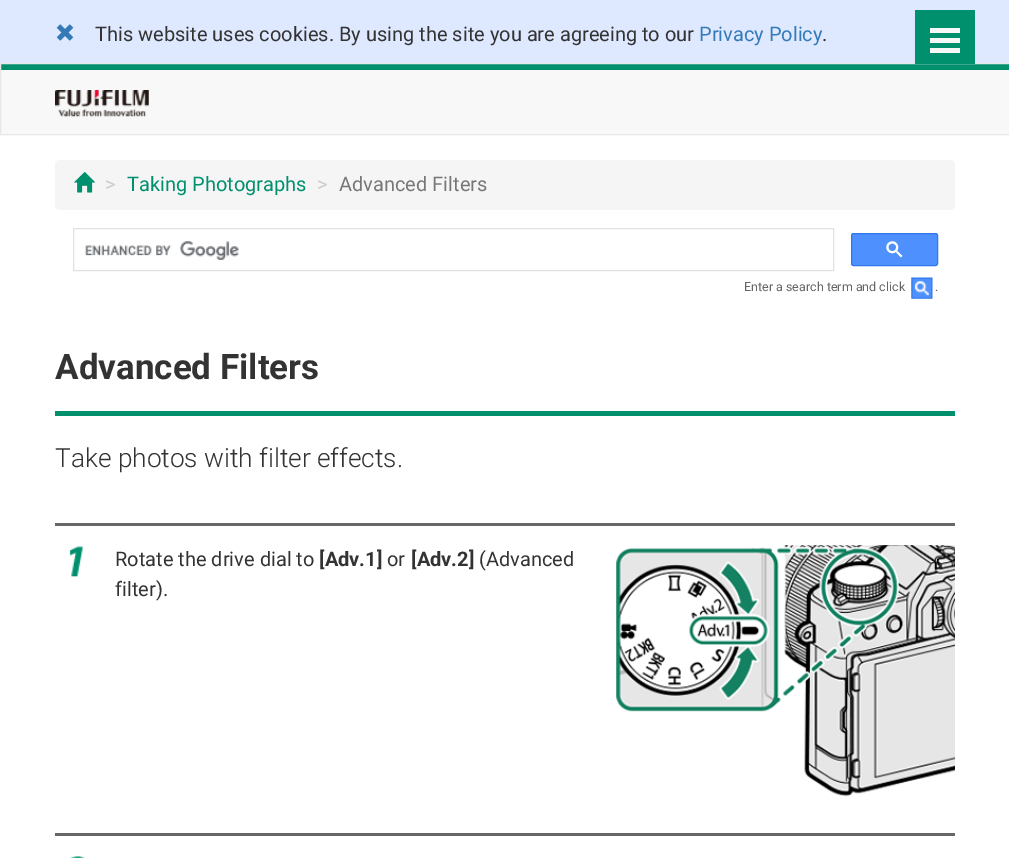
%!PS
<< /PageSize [1009 858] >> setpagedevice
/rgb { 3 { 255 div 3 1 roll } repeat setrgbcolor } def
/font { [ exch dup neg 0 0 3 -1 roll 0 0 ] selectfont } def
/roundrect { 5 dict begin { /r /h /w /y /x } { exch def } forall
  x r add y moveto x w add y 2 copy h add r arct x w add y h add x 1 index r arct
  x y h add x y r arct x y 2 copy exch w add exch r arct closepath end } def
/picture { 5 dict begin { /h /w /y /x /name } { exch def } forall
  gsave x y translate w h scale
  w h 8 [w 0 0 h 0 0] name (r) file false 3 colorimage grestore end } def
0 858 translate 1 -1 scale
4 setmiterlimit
255 255 255 rgb
0 0 1009 858 rectfill
222 232 255 rgb
0 0 1009 63 rectfill
(img/1.rgb) 56 24 18 17 picture
248 248 248 rgb
1 70 1008 64 rectfill
1 144 109 rgb
0 64 1009 6 rectfill
231 231 231 rgb
0.5 63.5 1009 71 rectstroke
(img/2.rgb) 55 90 94 27 picture
245 245 245 rgb
55 160 900 50 5 roundrect fill
(img/3.rgb) 74 172 22 21 picture
223 225 229 rgb
73.5 228.5 760 42 rectstroke
(img/4.rgb) 85 241 154 19 picture
77 144 254 rgb
851.5 233.5 86 32 2 roundrect gsave fill grestore
48 121 237 rgb
stroke
(img/5.rgb) 886 241 17 17 picture
(img/6.rgb) 911 277 22 22 picture
0 144 109 rgb
55 411 900 5 rectfill
(img/7.rgb) 69 546 15 31 picture
102 102 102 rgb
55 523 900 3 rectfill
(img/8.rgb) 616 545 339 252 picture
(img/9.rgb) 70 856 15 2 picture
[
  [55 833 900 3 102 102 102]
  [915 10 60 54 0 144 109]
  [930 38 30 5 248 248 248]
  [930 28 30 5 248 248 248]
  [930 48 30 5 248 248 248]
] { aload pop rgb rectfill } forall
/Roboto-Regular 20 font
51 51 51 rgb
95 41 moveto (This website uses cookies. By using the site you are agreeing to our) show
51 122 183 rgb
699 41 moveto (Privacy Policy) show
51 51 51 rgb
822 41 moveto (.) show
204 204 204 rgb
105 191 moveto (>) show
0 144 109 rgb
127 191 moveto (Taking Photographs) show
204 204 204 rgb
317 191 moveto (>) show
119 119 119 rgb
339 191 moveto (Advanced Filters) show
/Roboto-Regular 12.5 font
102 102 102 rgb
744 291 moveto (Enter a search term and click) show
935 291 moveto (.) show
/Roboto-Bold 35 font
51 51 51 rgb
55 379 moveto (Advanced Filters) show
/Roboto-Light 26.25 font
55 467 moveto (Take photos with filter effects.) show
/Roboto-Regular 20 font
115 566 moveto (Rotate the drive dial to) show
/Roboto-Bold 20 font
319 566 moveto ([Adv.1]) show
/Roboto-Regular 20 font
387 566 moveto (or) show
/Roboto-Bold 20 font
411 566 moveto ([Adv.2]) show
/Roboto-Regular 20 font
479 566 moveto (\(Advanced) show
115 596 moveto (filter\).) show
showpage
